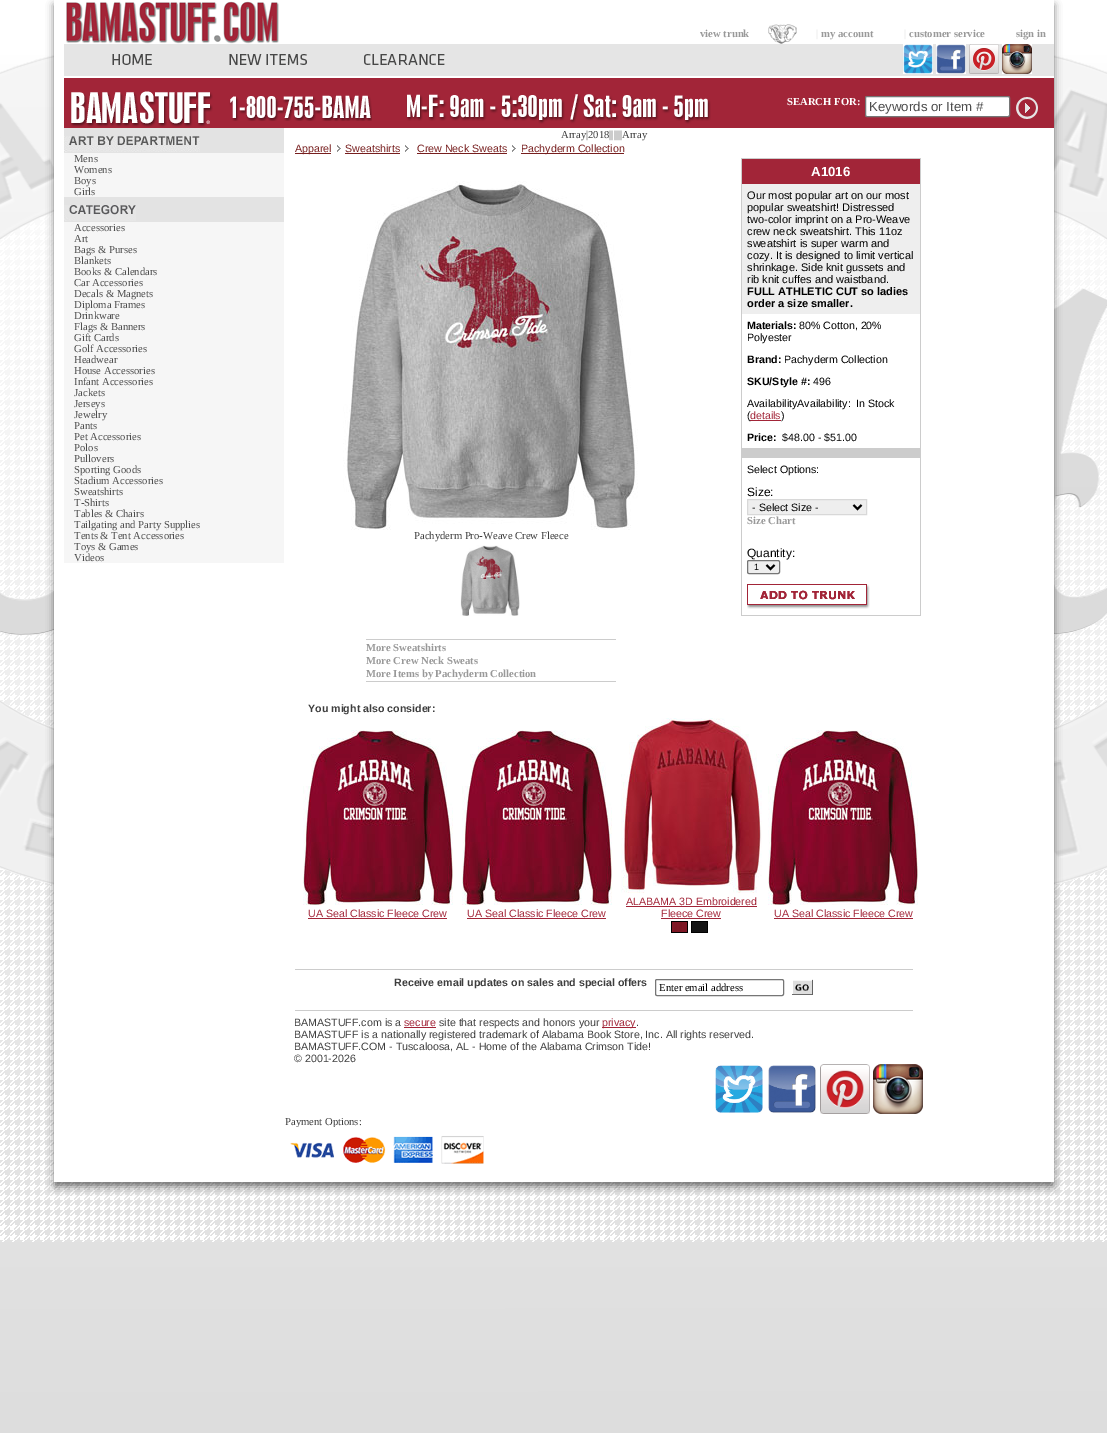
%!PS
<< /PageSize [1107 1433] /PageUsesTransparency true >> setpagedevice
/rgb { 3 { 255 div 3 1 roll } repeat setrgbcolor } def
/font { [ exch dup neg 0 0 3 -1 roll 0 0 ] selectfont } def
/alpha { dup .setfillconstantalpha .setstrokeconstantalpha } def
/roundrect { 5 dict begin { /r /h /w /y /x } { exch def } forall
  x r add y moveto x w add y 2 copy h add r arct x w add y h add x 1 index r arct
  x y h add x y r arct x y 2 copy exch w add exch r arct closepath end } def
/shadow { 12 dict begin { /a /b /q /h /w /y /x } { exch def } forall gsave /was 0 def
  9 -2 -9 { dup b mul 4 div /e exch def 1 sub .425 mul 2.718 exch exp 1 add a .99 .min exch div /now exch def
    1 1 now sub 1 was sub div sub alpha /was now def
    w h .min e 2 mul add 0 gt { x e sub y e sub w e 2 mul add h e 2 mul add
      q e add b .6 mul add w h .min 2 div e add .min 0 .max roundrect fill } if } for grestore end } def
/picture { 5 dict begin { /h /w /y /x /name } { exch def } forall
  gsave x y translate w h scale
  w h 8 [w 0 0 h 0 0] name (r) file false 3 colorimage grestore end } def
0 .pushpdf14devicefilter
0 1433 translate 1 -1 scale
4 setmiterlimit
255 255 255 rgb
0 0 1107 1433 rectfill
gsave 0 105 moveto 1107 105 lineto 1107 1433 lineto 0 1433 lineto closepath clip newpath
<< /ShadingType 2 /ColorSpace /DeviceRGB /Coords [553 0 554 1433] /Extend [true true] /Function << /FunctionType 2 /Domain [0 1] /C0 [1 1 1] /C1 [0.867 0.867 0.867] /N 1 >> >> shfill grestore
(img/1.rgb) 0 212 1107 1030 picture
(img/30.rgb) 0 55 54 830 picture
(img/31.rgb) 1054 55 53 830 picture
0 0 0 rgb
54 5 1000 1182 0 4 0.5 shadow
255 255 255 rgb
54 0 1000 1182 rectfill
(img/2.rgb) 66 1 213 43 picture
(img/3.rgb) 768 24 29 20 picture
229 229 229 rgb
64 44 990 32 rectfill
(img/4.rgb) 112 54 40 11 picture
(img/5.rgb) 229 54 78 11 picture
(img/6.rgb) 364 54 81 11 picture
(img/7.rgb) 903 44 30 30 picture
(img/8.rgb) 936 44 30 30 picture
(img/9.rgb) 969 44 30 30 picture
(img/10.rgb) 1002 44 30 30 picture
162 37 56 rgb
64 78 990 50 rectfill
(img/11.rgb) 70 91 143 36 picture
(img/12.rgb) 229 95 143 26 picture
(img/13.rgb) 406 94 305 30 picture
255 255 255 rgb
865.5 96.5 144 20 1.5 roundrect gsave fill grestore
118 118 118 rgb
stroke
(img/14.rgb) 1016 97 22 22 picture
227 227 227 rgb
64 128 220 94 rectfill
(img/15.rgb) 64 136 136 16 picture
246 246 246 rgb
64 153 220 44 rectfill
(img/16.rgb) 64 205 72 16 picture
64 222 220 341 rectfill
119 30 30 rgb
295 153 36 1 rectfill
(img/17.rgb) 337 145 4 7 picture
345 153 55 1 rectfill
(img/17.rgb) 405 145 4 7 picture
417 153 90 1 rectfill
(img/17.rgb) 512 145 4 7 picture
[
  [521 153 103 1 119 30 30]
  [741 158 180 1 204 204 204]
  [741 159 1 456 204 204 204]
  [742 159 178 25 162 37 56]
  [742 184 178 130 238 238 238]
  [750 420 31 1 162 37 56]
  [742 448 178 10 204 204 204]
] { aload pop rgb rectfill } forall
238 238 238 rgb
747.5 499.5 moveto 866.5 499.5 lineto 866.5 514.5 lineto 747.5 514.5 lineto closepath gsave fill grestore
216 216 216 rgb
stroke
0 0 0 rgb
2 setlinewidth
853.5 505 moveto 857.5 509 lineto 861.5 505 lineto stroke
238 238 238 rgb
747.5 560.5 32 13 1.5 roundrect gsave fill grestore
118 118 118 rgb
1 setlinewidth
stroke
0 0 0 rgb
2 setlinewidth
766.5 565 moveto 770.5 569 lineto 774.5 565 lineto stroke
(img/18.rgb) 747 584 123 25 picture
204 204 204 rgb
920 159 1 456 rectfill
741 615 180 1 rectfill
(img/19.rgb) 343 181 295 349 picture
(img/20.rgb) 460 545 60 71 picture
366 639 250 1 rectfill
366 681 250 1 rectfill
(img/21.rgb) 303 730 150 175 picture
162 37 56 rgb
308 918 139 1 rectfill
(img/21.rgb) 462 730 150 175 picture
467 918 139 1 rectfill
(img/22.rgb) 621 718 141 175 picture
[
  [626 906 131 1 162 37 56]
  [661 918 60 1 162 37 56]
  [671 921 17 1 0 0 0]
  [671 922 1 10 0 0 0]
] { aload pop rgb rectfill } forall
(img/23.rgb) 672 922 15 10 picture
[
  [687 922 1 10 0 0 0]
  [671 932 17 1 0 0 0]
  [691 921 17 1 0 0 0]
  [691 922 1 10 0 0 0]
  [692 922 15 10 20 20 20]
  [707 922 1 10 0 0 0]
  [691 932 17 1 0 0 0]
] { aload pop rgb rectfill } forall
(img/21.rgb) 768 730 150 175 picture
162 37 56 rgb
774 918 139 1 rectfill
204 204 204 rgb
295 969 618 1 rectfill
118 118 118 rgb
1 setlinewidth
655.5 979.5 128 16 1.5 roundrect stroke
(img/24.rgb) 792 979 21 16 picture
[
  [295 1010 618 1 204 204 204]
  [404 1027 32 1 162 37 56]
  [602 1027 34 1 162 37 56]
] { aload pop rgb rectfill } forall
(img/25.rgb) 715 1065 48 48 picture
(img/26.rgb) 768 1065 48 48 picture
(img/27.rgb) 820 1064 50 50 picture
(img/28.rgb) 873 1064 50 50 picture
/LiberationSerif-Bold 10.65 font
153 153 153 rgb
700 37 moveto (view trunk) show
/LiberationSerif-Regular 10.65 font
221 221 221 rgb
816 37 moveto (|) show
/LiberationSerif-Bold 10.65 font
153 153 153 rgb
821 37 moveto (my account) show
/LiberationSerif-Regular 10.65 font
221 221 221 rgb
904 37 moveto (|) show
/LiberationSerif-Bold 10.65 font
153 153 153 rgb
909 37 moveto (customer service) show
1016 37 moveto (sign in) show
255 255 255 rgb
787 105 moveto (SEARCH FOR:) show
/LiberationSans-Regular 13.25 font
77 77 77 rgb
869 111 moveto (Keywords or Item #) show
/LiberationSerif-Regular 10.65 font
[
  [(Mens) 74 162]
  [(Womens) 74 173]
  [(Boys) 74 184]
  [(Girls) 74 195]
  [(Accessories) 74 231]
  [(Art) 74 242]
  [(Bags & Purses) 74 253]
  [(Blankets) 74 264]
  [(Books & Calendars) 74 275]
  [(Car Accessories) 74 286]
  [(Decals & Magnets) 74 297]
  [(Diploma Frames) 74 308]
  [(Drinkware) 74 319]
  [(Flags & Banners) 74 330]
  [(Gift Cards) 74 341]
  [(Golf Accessories) 74 352]
  [(Headwear) 74 363]
  [(House Accessories) 74 374]
  [(Infant Accessories) 74 385]
  [(Jackets) 74 396]
  [(Jerseys) 74 407]
  [(Jewelry) 74 418]
  [(Pants) 74 429]
  [(Pet Accessories) 74 440]
  [(Polos) 74 451]
  [(Pullovers) 74 462]
  [(Sporting Goods) 74 473]
  [(Stadium Accessories) 74 484]
  [(Sweatshirts) 74 495]
  [(T-Shirts) 74 506]
  [(Tables & Chairs) 74 517]
  [(Tailgating and Party Supplies) 74 528]
  [(Tents & Tent Accessories) 74 539]
  [(Toys & Games) 74 550]
  [(Videos) 74 561]
] { aload pop moveto show } forall
62 62 62 rgb
561 138 moveto (Array|2018||||||Array) show
/LiberationSans-Regular 10.65 font
119 30 30 rgb
[
  [(Apparel) 295 152]
  [(Sweatshirts) 345 152]
  [(Crew Neck Sweats) 417 152]
  [(Pachyderm Collection) 521 152]
] { aload pop moveto show } forall
/LiberationSans-Bold 13.25 font
255 255 255 rgb
811 176 moveto (A1016) show
/LiberationSans-Regular 11 font
0 0 0 rgb
[
  [(Our most popular art on our most) 747 199]
  [(popular sweatshirt! Distressed) 747 211]
  [(two-color imprint on a Pro-Weave) 747 223]
  [(crew neck sweatshirt. This 11oz) 747 235]
  [(sweatshirt is super warm and) 747 247]
  [(cozy. It is designed to limit vertical) 747 259]
  [(shrinkage. Side knit gussets and) 747 271]
  [(rib knit cuffes and waistband.) 747 283]
] { aload pop moveto show } forall
/LiberationSans-Bold 11 font
747 295 moveto (FULL ATHLETIC CUT so ladies) show
747 307 moveto (order a size smaller.) show
/LiberationSans-Bold 10.65 font
747 329 moveto (Materials:) show
/LiberationSans-Regular 10.65 font
799 329 moveto (80% Cotton, 20%) show
747 341 moveto (Polyester) show
/LiberationSans-Bold 10.65 font
747 363 moveto (Brand:) show
/LiberationSans-Regular 10.65 font
784 363 moveto (Pachyderm Collection) show
/LiberationSans-Bold 10.65 font
747 385 moveto (SKU/Style #:) show
/LiberationSans-Regular 10.65 font
[
  [(496) 813 385]
  [(AvailabilityAvailability:) 747 407]
  [(In Stock) 856 407]
  [(\() 747 419]
] { aload pop moveto show } forall
162 37 56 rgb
750 419 moveto (details) show
0 0 0 rgb
781 419 moveto (\)) show
/LiberationSans-Bold 10.65 font
747 441 moveto (Price:) show
/LiberationSans-Regular 10.65 font
782 441 moveto ($48.00 - $51.00) show
747 473 moveto (Select Options:) show
/LiberationSans-Regular 12 font
747 496 moveto (Size:) show
/LiberationSans-Regular 10.65 font
752 511 moveto (- Select Size -) show
/LiberationSerif-Bold 10.65 font
153 153 153 rgb
747 524 moveto (Size Chart) show
/LiberationSans-Regular 12 font
0 0 0 rgb
747 557 moveto (Quantity:) show
/LiberationSans-Regular 9 font
754 570 moveto (1) show
/LiberationSerif-Regular 10.65 font
62 62 62 rgb
414 539 moveto (Pachyderm Pro-Weave Crew Fleece) show
/LiberationSerif-Bold 10.65 font
153 153 153 rgb
[
  [(More Sweatshirts) 366 651]
  [(More Crew Neck Sweats) 366 664]
  [(More Items by Pachyderm Collection) 366 677]
] { aload pop moveto show } forall
/LiberationSans-Bold 10.65 font
62 62 62 rgb
308 712 moveto (You might also consider:) show
/LiberationSans-Regular 10.65 font
162 37 56 rgb
[
  [(UA Seal Classic Fleece Crew) 308 917]
  [(UA Seal Classic Fleece Crew) 467 917]
  [(ALABAMA 3D Embroidered) 626 905]
  [(Fleece Crew) 661 917]
  [(UA Seal Classic Fleece Crew) 774 917]
] { aload pop moveto show } forall
/LiberationSans-Bold 10.65 font
62 62 62 rgb
394 986 moveto (Receive email updates on sales and special offers) show
/LiberationSerif-Regular 10.65 font
0 0 0 rgb
659 991 moveto (Enter email address) show
/LiberationSans-Regular 10.65 font
62 62 62 rgb
294 1026 moveto (BAMASTUFF.com is a) show
162 37 56 rgb
404 1026 moveto (secure) show
62 62 62 rgb
439 1026 moveto (site that respects and honors your) show
162 37 56 rgb
602 1026 moveto (privacy) show
62 62 62 rgb
[
  [(.) 636 1026]
  [(BAMASTUFF is a nationally registered trademark of Alabama Book Store, Inc. All rights reserved.) 294 1038]
  [(BAMASTUFF.COM - Tuscaloosa, AL - Home of the Alabama Crimson Tide!) 294 1050]
  [(© 2001-2026) 294 1062]
] { aload pop moveto show } forall
/LiberationSerif-Regular 10.65 font
285 1125 moveto (Payment Options:) show
(img/29.rgb) 290 1127 194 37 picture
.poppdf14devicefilter showpage
